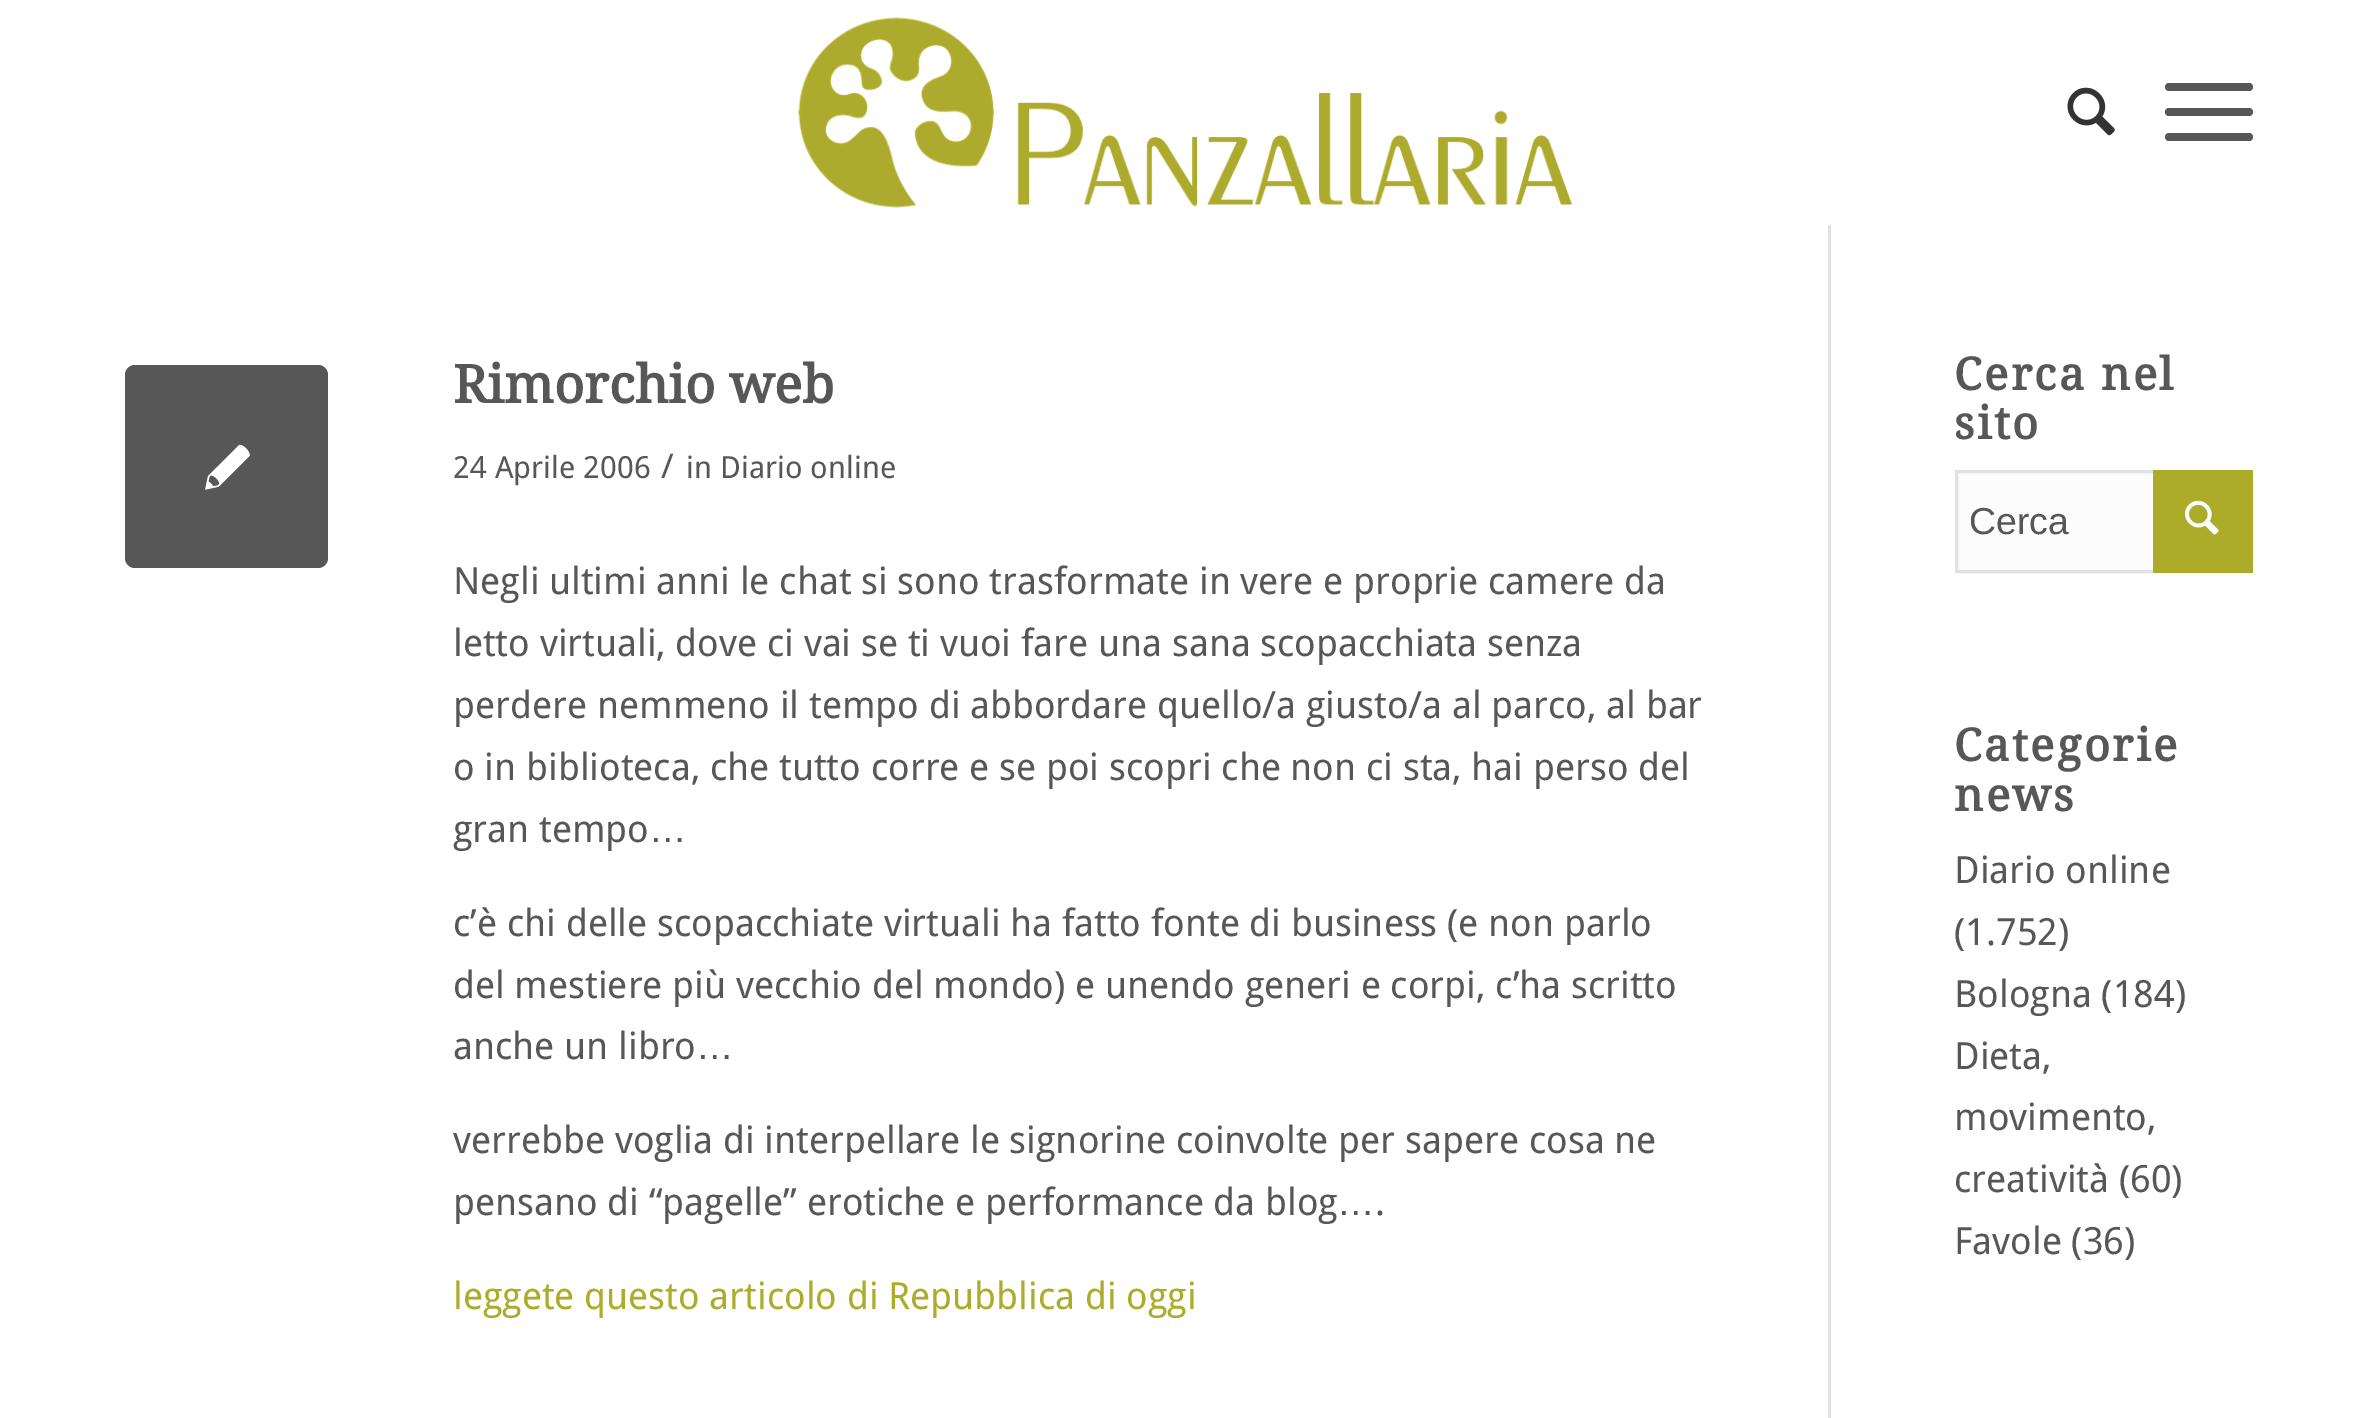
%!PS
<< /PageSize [2376 1418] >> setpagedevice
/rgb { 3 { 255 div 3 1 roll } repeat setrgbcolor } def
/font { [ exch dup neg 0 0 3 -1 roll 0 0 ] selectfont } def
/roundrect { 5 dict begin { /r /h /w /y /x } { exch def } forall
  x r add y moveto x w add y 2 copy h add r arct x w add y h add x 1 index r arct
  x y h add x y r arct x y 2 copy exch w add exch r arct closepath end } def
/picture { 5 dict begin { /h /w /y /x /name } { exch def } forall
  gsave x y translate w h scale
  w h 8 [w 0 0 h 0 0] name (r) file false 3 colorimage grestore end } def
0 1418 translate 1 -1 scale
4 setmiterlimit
255 255 255 rgb
0 0 2376 1418 rectfill
(img/1.rgb) 798 17 774 191 picture
(img/2.rgb) 2067 87 48 49 picture
87 87 87 rgb
2165 108 88 8 4 roundrect fill
2165 83 88 8 4 roundrect fill
2165 133 88 8 4 roundrect fill
225 225 225 rgb
1828 225 3 1193 rectfill
87 87 87 rgb
125 365 203 203 10 roundrect fill
(img/3.rgb) 205 444 45 46 picture
252 252 252 rgb
1958 473 195 97 rectfill
225 225 225 rgb
3 setlinewidth
1956.5 471.5 295 100 rectstroke
172 172 42 rgb
2153 470 100 103 rectfill
(img/4.rgb) 2185 500 34 35 picture
/DroidSerif-Bold 52.5 font
87 87 87 rgb
453 403 moveto (Rimorchio web) show
/DroidSans-Regular 30.5 font
453 478 moveto (24 Aprile 2006) show
/DroidSans-Regular 34 font
661 478 moveto (/) show
/DroidSans-Regular 30.5 font
686 478 moveto (in Diario online) show
/DroidSans-Regular 37.5 font
[
  [(Negli ultimi anni le chat si sono trasformate in vere e proprie camere da) 453 594]
  [(letto virtuali, dove ci vai se ti vuoi fare una sana scopacchiata senza) 453 656]
  [(perdere nemmeno il tempo di abbordare quello/a giusto/a al parco, al bar) 453 718]
  [(o in biblioteca, che tutto corre e se poi scopri che non ci sta, hai perso del) 453 780]
  [(gran tempo) 453 842]
] { aload pop moveto show } forall
/LiberationSans-Regular 37.5 font
649 842 moveto (…) show
/DroidSans-Regular 37.5 font
[
  [(c’è chi delle scopacchiate virtuali ha fatto fonte di business \(e non parlo) 453 936]
  [(del mestiere più vecchio del mondo\) e unendo generi e corpi, c’ha scritto) 453 998]
  [(anche un libro) 453 1059]
] { aload pop moveto show } forall
/LiberationSans-Regular 37.5 font
696 1059 moveto (…) show
/DroidSans-Regular 37.5 font
453 1153 moveto (verrebbe voglia di interpellare le signorine coinvolte per sapere cosa ne) show
453 1215 moveto (pensano di “pagelle” erotiche e performance da blog) show
/LiberationSans-Regular 37.5 font
1337 1215 moveto (…) show
/DroidSans-Regular 37.5 font
1375 1215 moveto (.) show
172 172 42 rgb
453 1309 moveto (leggete questo articolo di Repubblica di oggi) show
/DroidSerif-Bold 45 font
87 87 87 rgb
1954 390 moveto 2.5 0 (Cerca nel) ashow
1954 439 moveto 2.5 0 (sito) ashow
/LiberationSans-Regular 37.5 font
1969 534 moveto (Cerca) show
/DroidSerif-Bold 45 font
1954 761 moveto 2.5 0 (Categorie) ashow
1954 811 moveto 2.5 0 (news) ashow
/DroidSans-Regular 37.5 font
[
  [(Diario online) 1954 883]
  [(\(1.752\)) 1954 945]
  [(Bologna \(184\)) 1954 1007]
  [(Dieta,) 1954 1069]
  [(movimento,) 1954 1130]
  [(creatività \(60\)) 1954 1192]
  [(Favole \(36\)) 1954 1254]
] { aload pop moveto show } forall
showpage
